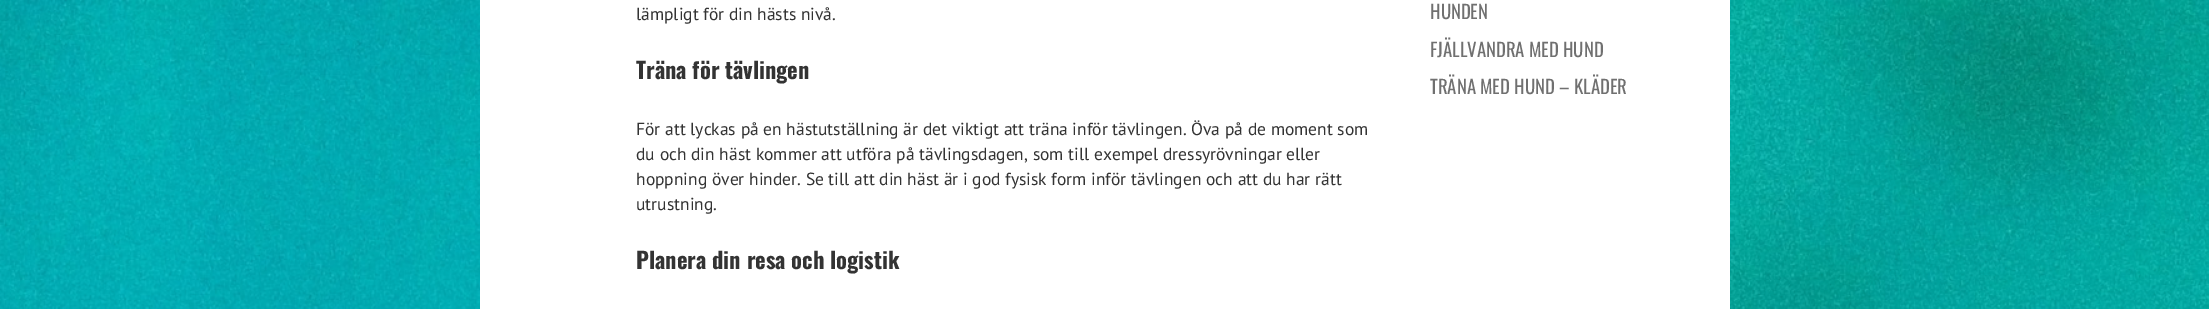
%!PS
<< /PageSize [2209 309] >> setpagedevice
/rgb { 3 { 255 div 3 1 roll } repeat setrgbcolor } def
/font { [ exch dup neg 0 0 3 -1 roll 0 0 ] selectfont } def
/picture { 5 dict begin { /h /w /y /x /name } { exch def } forall
  gsave x y translate w h scale
  w h 8 [w 0 0 h 0 0] name (r) file false 3 colorimage grestore end } def
0 309 translate 1 -1 scale
4 setmiterlimit
255 255 255 rgb
0 0 2209 309 rectfill
(img/1.rgb) 0 0 2209 309 picture
480 0 1250 309 rectfill
/PTSans-Regular 17.5 font
51 51 51 rgb
636 20 moveto (lämpligt för din hästs nivå.) show
/Oswald-Bold 22.5 font
636 79 moveto (Träna för tävlingen) show
/PTSans-Regular 17.5 font
[
  [(För att lyckas på en hästutställning är det viktigt att träna inför tävlingen. Öva på de moment som) 636 135]
  [(du och din häst kommer att utföra på tävlingsdagen, som till exempel dressyrövningar eller) 636 160]
  [(hoppning över hinder. Se till att din häst är i god fysisk form inför tävlingen och att du har rätt) 636 185]
  [(utrustning.) 636 210]
] { aload pop moveto show } forall
/Oswald-Bold 22.5 font
636 269 moveto (Planera din resa och logistik) show
/Oswald-Regular 18.75 font
112 112 112 rgb
[
  [(HUNDEN) 1430 19]
  [(FJÄLLVANDRA MED HUND) 1430 57]
  [(TRÄNA MED HUND – KLÄDER) 1430 94]
] { aload pop moveto show } forall
showpage
